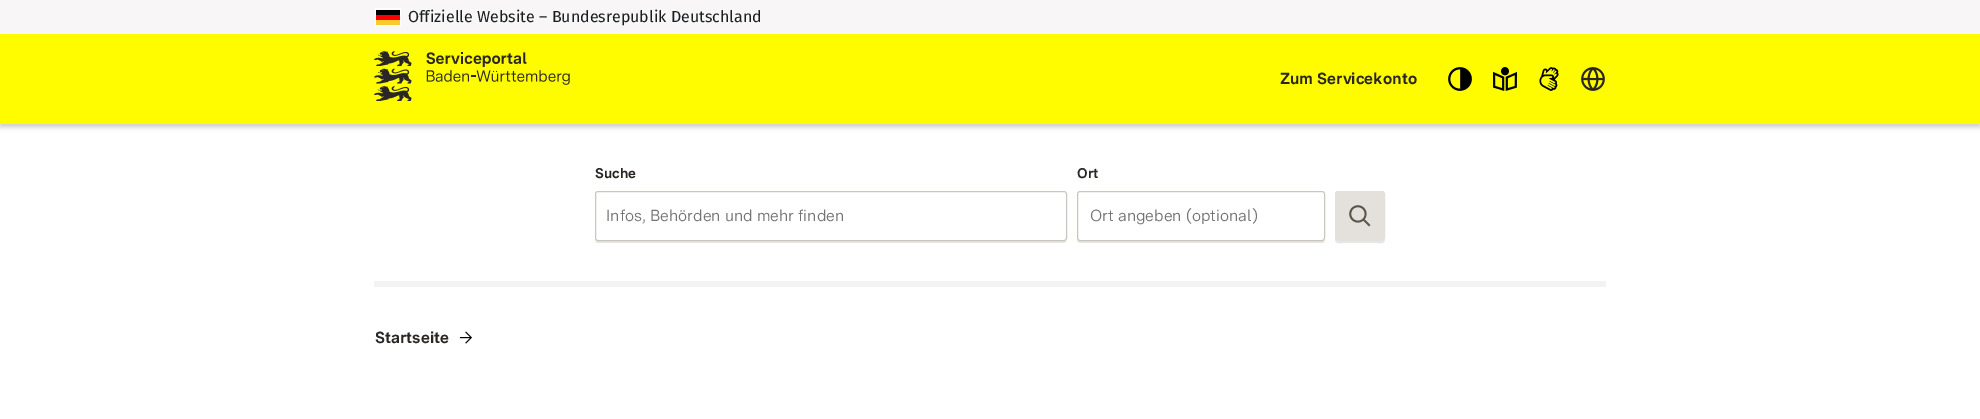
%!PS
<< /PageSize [1980 419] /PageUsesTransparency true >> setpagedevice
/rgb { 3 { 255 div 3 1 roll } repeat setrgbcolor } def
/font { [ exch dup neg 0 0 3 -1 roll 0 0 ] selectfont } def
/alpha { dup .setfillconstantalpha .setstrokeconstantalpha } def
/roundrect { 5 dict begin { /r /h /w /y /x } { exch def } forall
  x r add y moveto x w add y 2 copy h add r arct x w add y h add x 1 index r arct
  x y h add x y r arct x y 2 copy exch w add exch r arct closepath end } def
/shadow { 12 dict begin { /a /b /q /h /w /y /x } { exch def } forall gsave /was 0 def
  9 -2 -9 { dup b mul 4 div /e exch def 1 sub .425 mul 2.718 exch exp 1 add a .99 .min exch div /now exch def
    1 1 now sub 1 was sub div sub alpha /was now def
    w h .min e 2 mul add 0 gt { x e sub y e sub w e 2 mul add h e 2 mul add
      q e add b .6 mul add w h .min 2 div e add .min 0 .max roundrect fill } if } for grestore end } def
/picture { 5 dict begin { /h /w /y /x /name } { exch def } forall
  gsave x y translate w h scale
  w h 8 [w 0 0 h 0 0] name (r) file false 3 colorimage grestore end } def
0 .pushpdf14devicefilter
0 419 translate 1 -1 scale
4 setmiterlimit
255 255 255 rgb
0 0 1980 419 rectfill
0 0 0 rgb
0 3 1980 124 0 2.5 0.2 shadow
255 252 0 rgb
0 34 1980 90 rectfill
248 246 246 rgb
0 0 1980 34 rectfill
255 255 255 rgb
375.5 8.5 25 17 rectstroke
[
  [376 10 24 5 0 0 0]
  [376 15 24 5 255 0 0]
  [376 20 24 5 250 202 44]
] { aload pop rgb rectfill } forall
(img/1.rgb) 374 51 196 50 picture
(img/2.rgb) 1448 67 24 24 picture
(img/3.rgb) 1493 67 24 24 picture
(img/4.rgb) 1539 67 20 24 picture
(img/5.rgb) 1581 67 24 24 picture
244 243 241 rgb
374 281 1232 6 rectfill
230 230 230 rgb
595 238 moveto 595 240 595 243 598 243 curveto 1064 243 lineto 1066 242 lineto 1067 238 lineto 1067 240 1066 241 1064 241 curveto 598 241 lineto 596 241 595 240 595 238 curveto closepath fill
255 255 255 rgb
595.5 191.5 471 49 2.5 roundrect gsave fill grestore
203 198 189 rgb
stroke
230 230 230 rgb
1077 238 moveto 1077 240 1077 243 1080 243 curveto 1322 243 lineto 1325 243 1325 240 1325 238 curveto 1325 240 1324 241 1322 241 curveto 1080 241 lineto 1078 241 1077 240 1077 238 curveto closepath fill
255 255 255 rgb
1077.5 191.5 247 49 2.5 roundrect gsave fill grestore
203 198 189 rgb
stroke
230 230 230 rgb
1335 238 moveto 1335 245 1339 243 1345 243 curveto 1375 243 lineto 1381 243 1385 245 1385 238 curveto 1385 240 1384 241 1382 241 curveto 1338 241 lineto 1336 241 1335 240 1335 238 curveto closepath fill
228 225 220 rgb
1336 192 48 48 2 roundrect gsave fill grestore
2 setlinewidth
stroke
(img/6.rgb) 1349 205 22 22 picture
(img/7.rgb) 459 331 13 13 picture
/FiraSans-Regular 16 font
25 30 33 rgb
408 22 moveto (Offizielle Website – Bundesrepublik Deutschland) show
/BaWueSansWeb-Bold 16 font
42 38 35 rgb
1280 84 moveto (Zum Servicekonto) show
/BaWueSansWeb-Bold 14 font
595 178 moveto (Suche) show
/BaWueSansWeb-Regular 16 font
117 117 117 rgb
606 221 moveto (Infos, Behörden und mehr finden) show
/BaWueSansWeb-Bold 14 font
42 38 35 rgb
1077 178 moveto (Ort) show
/BaWueSansWeb-Regular 16 font
117 117 117 rgb
1090 221 moveto (Ort angeben \(optional\)) show
/BaWueSansWeb-Bold 16 font
42 38 35 rgb
375 343 moveto (Startseite) show
.poppdf14devicefilter showpage
